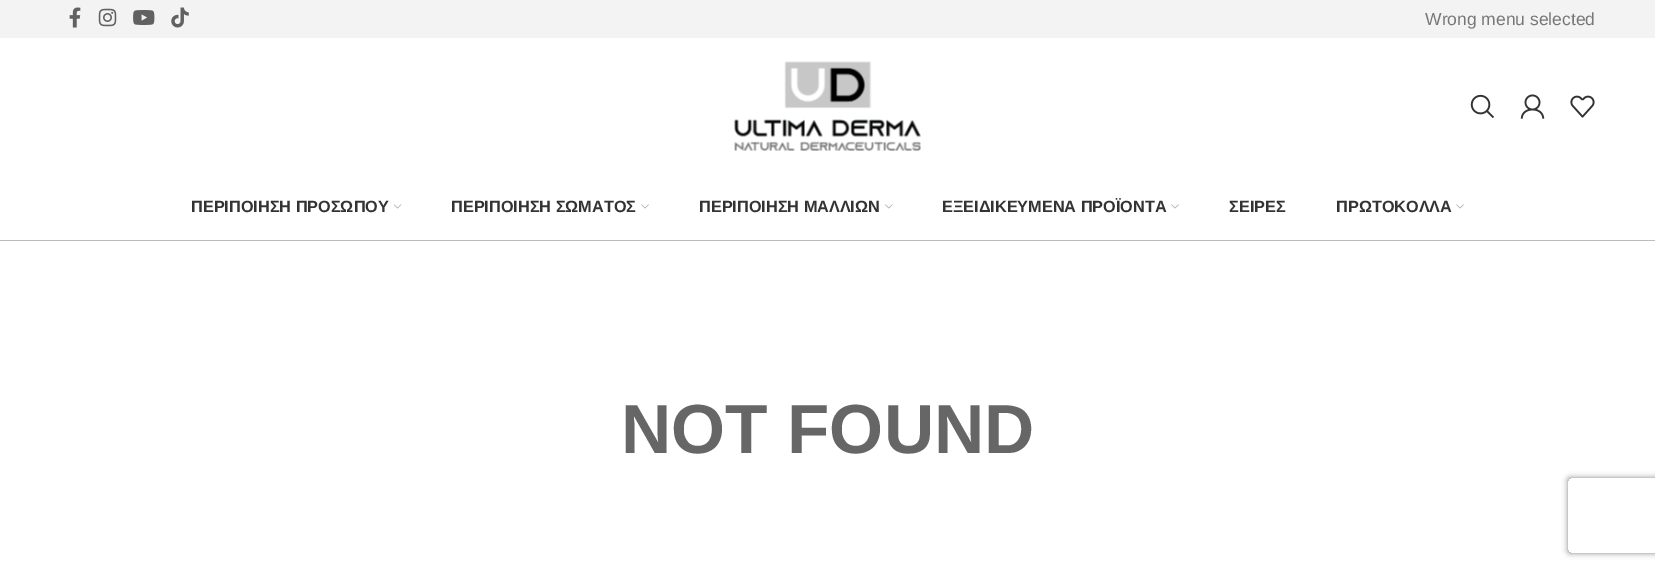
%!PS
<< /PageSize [1655 570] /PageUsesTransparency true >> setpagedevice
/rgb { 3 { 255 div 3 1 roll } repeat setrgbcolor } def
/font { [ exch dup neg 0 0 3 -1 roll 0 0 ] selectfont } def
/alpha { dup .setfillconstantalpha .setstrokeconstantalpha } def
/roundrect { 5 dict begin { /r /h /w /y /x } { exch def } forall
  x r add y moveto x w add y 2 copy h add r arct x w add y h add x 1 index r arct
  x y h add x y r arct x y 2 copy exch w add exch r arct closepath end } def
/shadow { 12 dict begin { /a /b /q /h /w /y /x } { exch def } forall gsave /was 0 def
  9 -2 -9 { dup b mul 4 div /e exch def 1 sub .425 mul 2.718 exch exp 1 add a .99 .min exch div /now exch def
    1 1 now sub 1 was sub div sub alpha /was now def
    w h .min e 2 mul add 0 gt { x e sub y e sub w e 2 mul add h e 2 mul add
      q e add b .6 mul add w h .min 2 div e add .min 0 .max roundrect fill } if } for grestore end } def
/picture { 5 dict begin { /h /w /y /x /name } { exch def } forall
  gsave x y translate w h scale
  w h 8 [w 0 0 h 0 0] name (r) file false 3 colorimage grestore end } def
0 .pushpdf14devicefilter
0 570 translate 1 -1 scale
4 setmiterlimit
255 255 255 rgb
0 0 1655 570 rectfill
243 243 243 rgb
0 0 1655 38 rectfill
(img/1.rgb) 69 7 12 21 picture
(img/2.rgb) 98 8 19 19 picture
(img/3.rgb) 133 10 22 15 picture
(img/4.rgb) 171 7 18 21 picture
(img/5.rgb) 734 61 187 90 picture
(img/6.rgb) 1470 94 24 25 picture
(img/7.rgb) 1520 94 25 25 picture
(img/8.rgb) 1570 95 25 23 picture
188 188 188 rgb
0 240 1655 1 rectfill
(img/9.rgb) 393 204 9 5 picture
(img/10.rgb) 641 204 8 5 picture
(img/11.rgb) 885 204 8 5 picture
(img/10.rgb) 1171 204 8 5 picture
(img/10.rgb) 1456 204 8 5 picture
gsave
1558 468 moveto 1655 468 lineto 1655 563 lineto 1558 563 lineto closepath 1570.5 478 moveto 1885.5 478 lineto 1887 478 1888 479 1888 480.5 curveto 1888 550.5 lineto 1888 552 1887 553 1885.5 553 curveto 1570.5 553 lineto 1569 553 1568 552 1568 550.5 curveto 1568 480.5 lineto 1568 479 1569 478 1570.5 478 curveto closepath eoclip newpath
128 128 128 rgb
1568 478 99 75 2.5 3 1 shadow
grestore
/LiberationSans-Regular 17.5 font
119 119 119 rgb
1425 25 moveto (Wrong menu selected) show
/LiberationSans-Bold 16.25 font
51 51 51 rgb
[
  [(ΠΕΡΙΠΟΙΗΣΗ ΠΡΟΣΩΠΟΥ) 191 212]
  [(ΠΕΡΙΠΟΙΗΣΗ ΣΩΜΑΤΟΣ) 451 212]
  [(ΠΕΡΙΠΟΙΗΣΗ ΜΑΛΛΙΩΝ) 699 212]
  [(ΕΞΕΙΔΙΚΕΥΜΕΝΑ ΠΡΟΪΟΝΤΑ) 942 212]
  [(ΣΕΙΡΕΣ) 1229 212]
  [(ΠΡΩΤΟΚΟΛΛΑ) 1336 212]
] { aload pop moveto show } forall
/LiberationSans-Bold 69.5 font
102 102 102 rgb
621 453 moveto (NOT FOUND) show
.poppdf14devicefilter showpage
